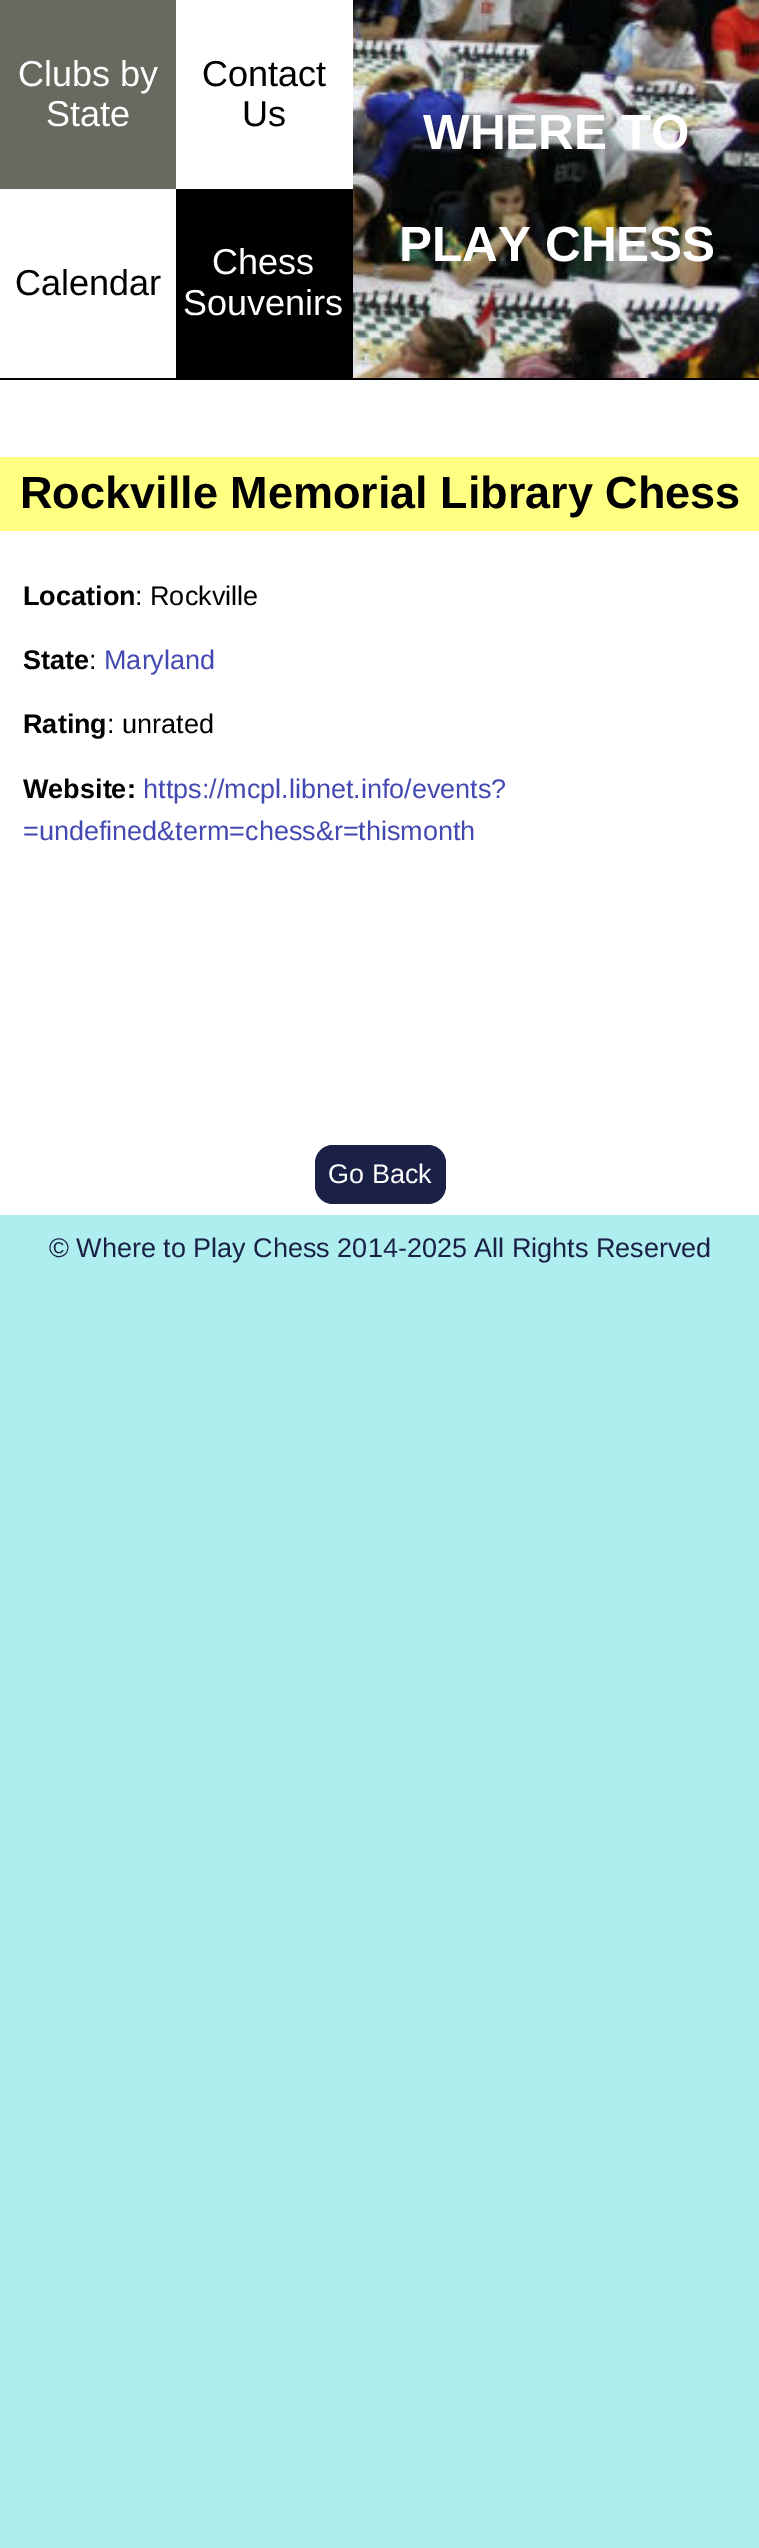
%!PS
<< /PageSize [759 2548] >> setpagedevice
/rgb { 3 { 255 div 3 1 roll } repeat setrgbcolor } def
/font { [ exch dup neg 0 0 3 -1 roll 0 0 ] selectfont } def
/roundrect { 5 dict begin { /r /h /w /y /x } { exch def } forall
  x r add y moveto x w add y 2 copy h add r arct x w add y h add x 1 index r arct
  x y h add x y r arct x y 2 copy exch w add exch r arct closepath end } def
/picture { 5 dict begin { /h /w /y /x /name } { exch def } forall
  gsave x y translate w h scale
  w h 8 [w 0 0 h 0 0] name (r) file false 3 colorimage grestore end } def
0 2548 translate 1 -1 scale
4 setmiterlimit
175 238 238 rgb
0 0 759 2548 rectfill
255 255 255 rgb
0 380 759 835 rectfill
(img/1.rgb) 353 0 406 378 picture
[
  [0 378 759 2 0 0 0]
  [0 0 176 189 106 105 95]
  [176 0 177 189 255 255 255]
  [0 189 176 189 255 255 255]
  [176 189 177 189 0 0 0]
  [0 457 759 74 255 255 130]
] { aload pop rgb rectfill } forall
26 32 70 rgb
315 1145 131 59 18 roundrect fill
/LiberationSans-Regular 36 font
255 255 255 rgb
18 86 moveto (Clubs by) show
46 126 moveto (State) show
0 0 0 rgb
202 86 moveto (Contact) show
242 126 moveto (Us) show
/LiberationSans-Bold 49.5 font
255 255 255 rgb
423 149 moveto (WHERE TO) show
/LiberationSans-Regular 36 font
0 0 0 rgb
15 295 moveto (Calendar) show
255 255 255 rgb
212 274 moveto (Chess) show
183 315 moveto (Souvenirs) show
/LiberationSans-Bold 49.5 font
399 261 moveto (PLAY CHESS) show
/LiberationSans-Bold 45 font
0 0 0 rgb
20 508 moveto (Rockville Memorial Library Chess) show
/LiberationSans-Bold 27 font
23 605 moveto (Location) show
/LiberationSans-Regular 27 font
135 605 moveto (: Rockville) show
/LiberationSans-Bold 27 font
23 669 moveto (State) show
/LiberationSans-Regular 27 font
89 669 moveto (:) show
68 73 178 rgb
104 669 moveto (Maryland) show
/LiberationSans-Bold 27 font
0 0 0 rgb
23 733 moveto (Rating) show
/LiberationSans-Regular 27 font
107 733 moveto (: unrated) show
/LiberationSans-Bold 27 font
23 798 moveto (Website:) show
/LiberationSans-Regular 27 font
68 73 178 rgb
143 798 moveto (https://mcpl.libnet.info/events?) show
23 840 moveto (=undefined&term=chess&r=thismonth) show
255 255 255 rgb
328 1183 moveto (Go Back) show
26 32 70 rgb
49 1257 moveto (© Where to Play Chess 2014-2025 All Rights Reserved) show
showpage
